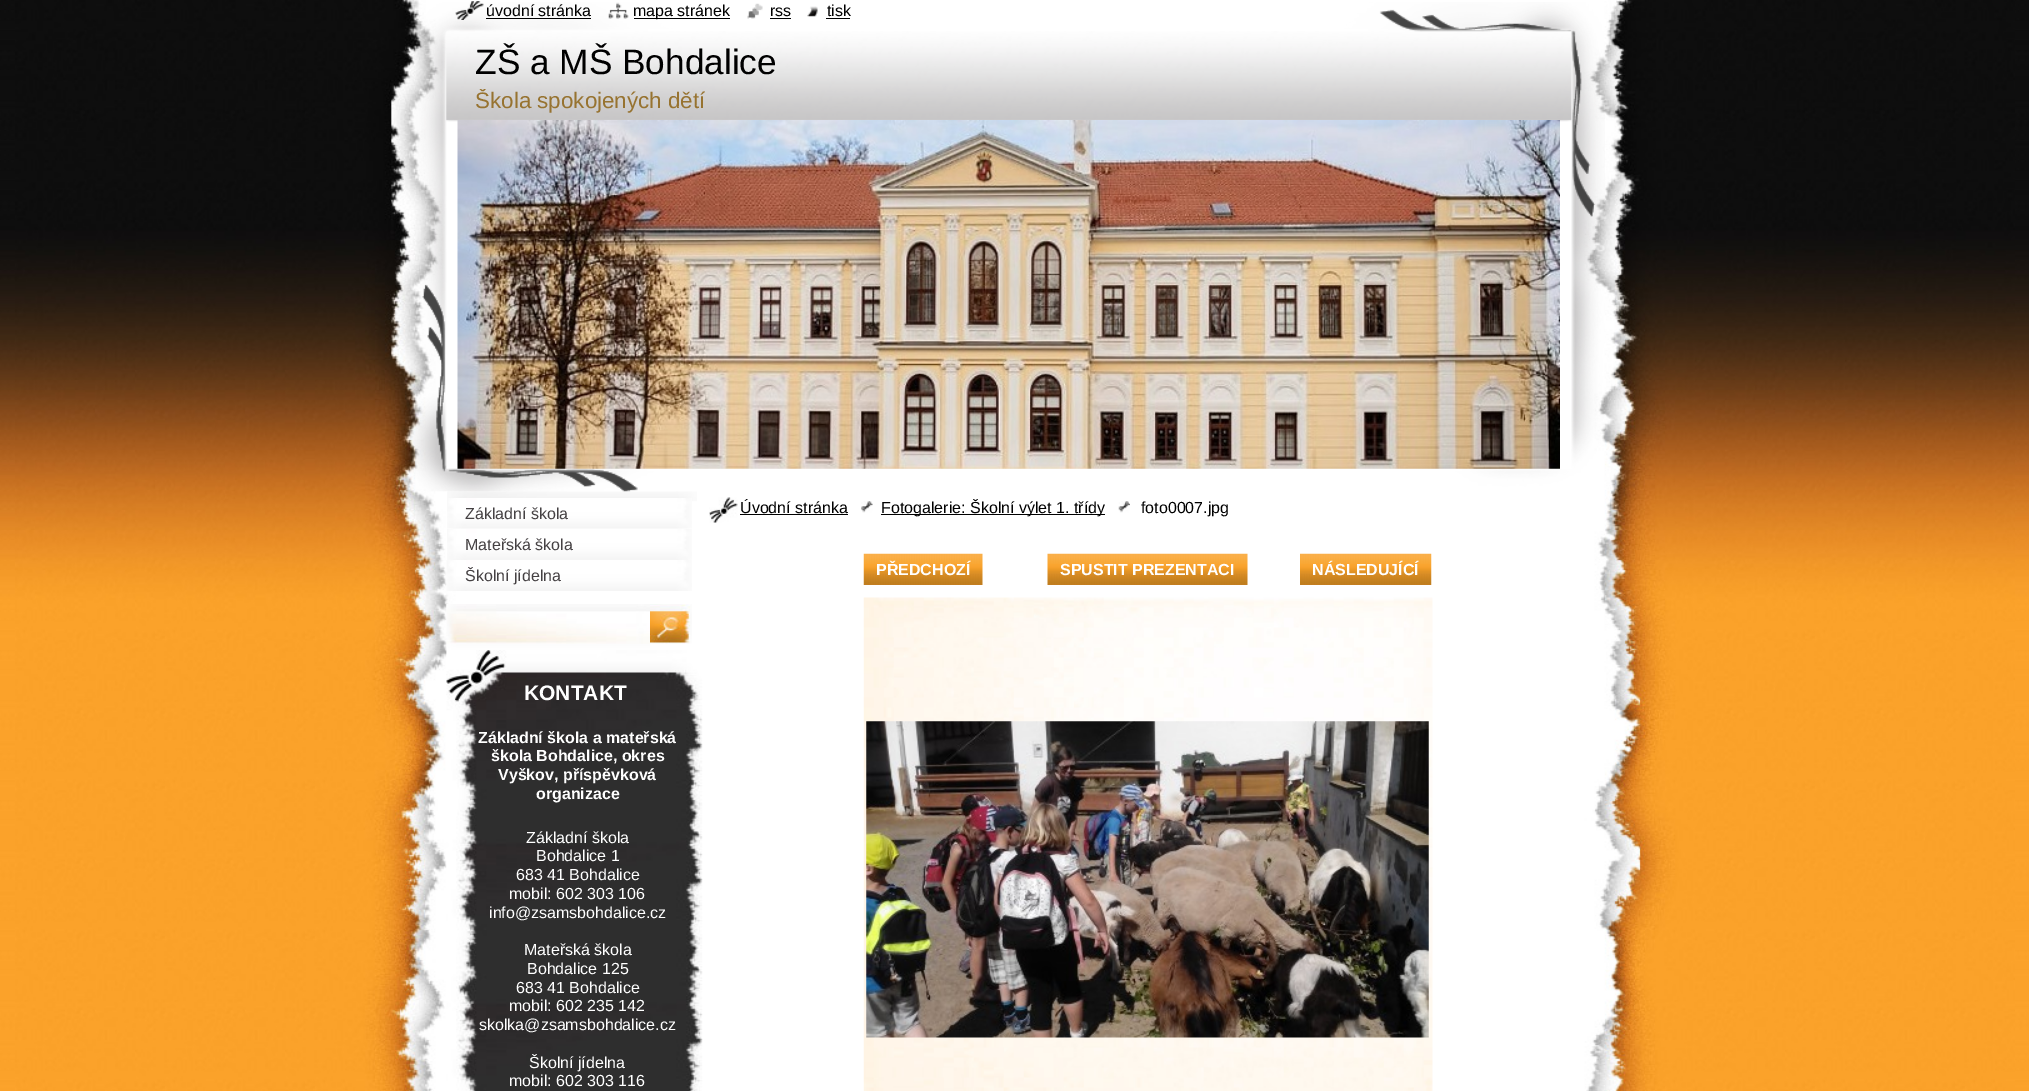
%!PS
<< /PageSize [2029 1091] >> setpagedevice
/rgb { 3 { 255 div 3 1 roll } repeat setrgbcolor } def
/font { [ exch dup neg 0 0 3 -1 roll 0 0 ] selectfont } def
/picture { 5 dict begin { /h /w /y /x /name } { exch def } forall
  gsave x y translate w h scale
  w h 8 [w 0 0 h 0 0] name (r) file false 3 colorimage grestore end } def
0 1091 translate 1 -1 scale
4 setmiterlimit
255 255 255 rgb
0 0 2029 1091 rectfill
(img/1.rgb) 0 0 2029 1091 picture
(img/2.rgb) 15 600 2000 491 picture
(img/3.rgb) 15 0 2000 600 picture
(img/10.rgb) 447 491 250 11 picture
(img/8.rgb) 410 2 1195 490 picture
(img/4.rgb) 455 1 29 19 picture
0 0 0 rgb
486 18 105 1 rectfill
(img/5.rgb) 608 2 21 17 picture
634 18 96 1 rectfill
(img/6.rgb) 747 3 16 16 picture
770 18 21 1 rectfill
(img/7.rgb) 807 6 11 11 picture
826 18 24 1 rectfill
(img/9.rgb) 457 120 1103 349 picture
(img/11.rgb) 447 498 245 31 picture
(img/12.rgb) 447 529 245 31 picture
(img/13.rgb) 446 560 246 31 picture
(img/14.rgb) 446 604 204 46 picture
(img/15.rgb) 650 604 42 40 picture
(img/16.rgb) 446 650 257 441 picture
(img/17.rgb) 709 497 29 26 picture
740 514 108 1 rectfill
(img/18.rgb) 861 501 12 12 picture
881 514 224 1 rectfill
(img/19.rgb) 1118 501 12 12 picture
(img/20.rgb) 863 553 120 32 picture
(img/21.rgb) 1047 553 201 32 picture
(img/22.rgb) 1300 553 132 32 picture
(img/23.rgb) 863 597 570 494 picture
(img/24.rgb) 866 721 563 317 picture
/LiberationSans-Regular 16 font
[
  [(úvodní stránka) 486 16]
  [(mapa stránek) 633 16]
  [(rss) 770 16]
  [(tisk) 827 16]
] { aload pop moveto show } forall
/LiberationSans-Regular 35.25 font
475 74 moveto (ZŠ a MŠ Bohdalice) show
gsave
475 89 1075 31 rectclip
/LiberationSans-Regular 22.4 font
151 115 48 rgb
475 108 moveto (Škola spokojených dětí) show
grestore
/LiberationSans-Regular 16 font
69 65 67 rgb
[
  [(Základní škola) 465 519]
  [(Mateřská škola) 465 550]
  [(Školní jídelna) 465 581]
] { aload pop moveto show } forall
/LiberationSans-Bold 21 font
255 255 255 rgb
524 700 moveto (KONTAKT) show
/LiberationSans-Bold 16 font
[
  [(Základní škola a mateřská) 478 743]
  [(škola Bohdalice, okres) 491 761]
  [(Vyškov, příspěvková) 498 780]
  [(organizace) 536 799]
] { aload pop moveto show } forall
/LiberationSans-Regular 16 font
[
  [(Základní škola) 526 843]
  [(Bohdalice 1) 536 861]
  [(683 41 Bohdalice) 516 880]
  [(mobil: 602 303 106) 509 899]
  [(info@zsamsbohdalice.cz) 489 918]
  [(Mateřská škola) 524 955]
  [(Bohdalice 125) 527 974]
  [(683 41 Bohdalice) 516 993]
  [(mobil: 602 235 142) 509 1011]
  [(skolka@zsamsbohdalice.cz) 479 1030]
  [(Školní jídelna) 529 1068]
  [(mobil: 602 303 116) 509 1086]
] { aload pop moveto show } forall
0 0 0 rgb
[
  [(Úvodní stránka) 740 513]
  [(Fotogalerie: Školní výlet 1. třídy) 881 513]
  [(foto0007.jpg) 1141 513]
] { aload pop moveto show } forall
/LiberationSans-Bold 16 font
255 255 255 rgb
[
  [(PŘEDCHOZÍ) 876 575]
  [(SPUSTIT PREZENTACI) 1060 575]
  [(NÁSLEDUJÍCÍ) 1312 575]
] { aload pop moveto show } forall
showpage
